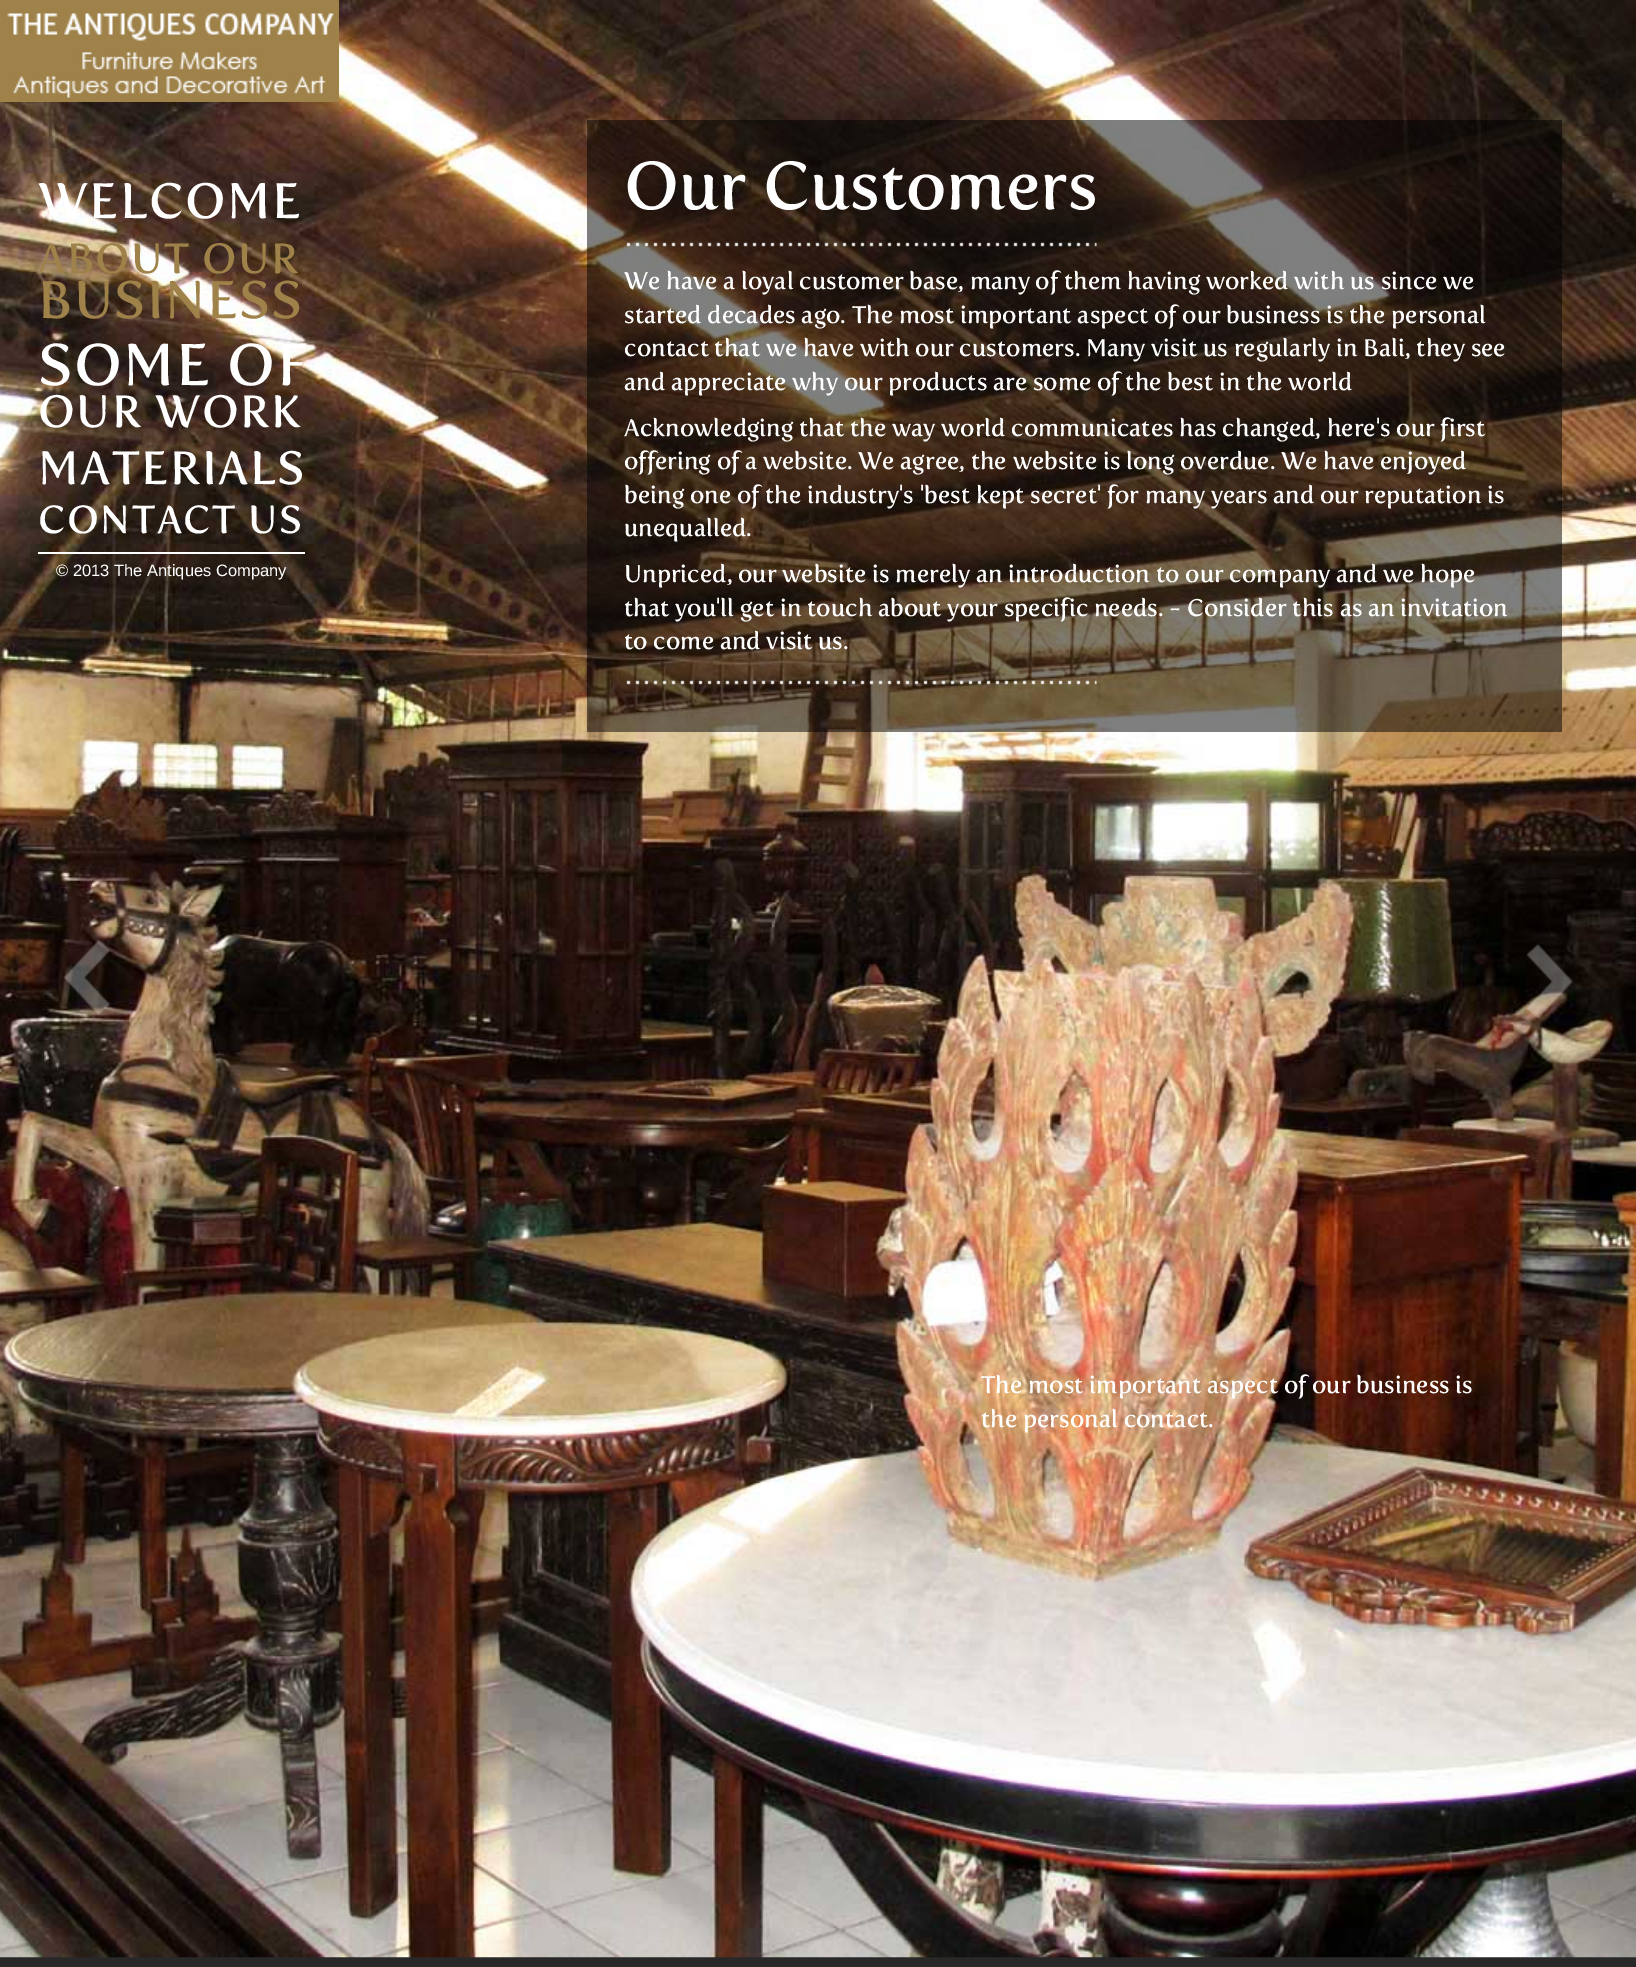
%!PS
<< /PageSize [1636 1967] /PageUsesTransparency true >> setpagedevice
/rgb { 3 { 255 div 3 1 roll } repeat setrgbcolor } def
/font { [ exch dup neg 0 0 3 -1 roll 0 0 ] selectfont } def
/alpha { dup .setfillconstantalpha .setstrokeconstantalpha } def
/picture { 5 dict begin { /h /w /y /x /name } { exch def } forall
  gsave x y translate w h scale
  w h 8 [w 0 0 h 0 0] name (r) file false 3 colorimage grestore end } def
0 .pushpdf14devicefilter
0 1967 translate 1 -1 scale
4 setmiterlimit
40 40 41 rgb
0 0 1636 1967 rectfill
(img/2.rgb) 0 0 1636 1958 picture
(img/1.rgb) 0 0 339 102 picture
255 255 255 rgb
38 552 267 2 rectfill
0.5 alpha
0 0 0 rgb
587 120 975 612 rectfill
1 alpha
(img/3.rgb) 626 242 471 5 picture
(img/4.rgb) 626 680 471 5 picture
(img/5.rgb) 63 940 47 75 picture
(img/6.rgb) 1526 943 47 76 picture
/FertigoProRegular-Regular 49.5 font
255 255 255 rgb
38 218 moveto 1.5 0 (WELCOME) ashow
/FertigoProRegular-Regular 42 font
159 130 74 rgb
38 273 moveto 1.5 0 (ABOUT OUR) ashow
/FertigoProRegular-Regular 52.5 font
38 318 moveto 1.5 0 (BUSINESS) ashow
/FertigoProRegular-Regular 58.5 font
255 255 255 rgb
38 385 moveto 1.5 0 (SOME OF) ashow
/FertigoProRegular-Regular 45 font
38 427 moveto 1.5 0 (OUR WORK) ashow
/FertigoProRegular-Regular 46.5 font
38 484 moveto 1.5 0 (MATERIALS) ashow
/FertigoProRegular-Regular 39 font
38 533 moveto 1.5 0 (CONTACT US) ashow
/LiberationSans-Regular 16.5 font
56 576 moveto (© 2013 The Antiques Company) show
/FertigoProRegular-Regular 67.25 font
624 209 moveto (Our Customers) show
/FertigoProRegular-Regular 24 font
[
  [(We have a loyal customer base, many of them having worked with us since we) 624 289]
  [(started decades ago. The most important aspect of our business is the personal) 624 323]
  [(contact that we have with our customers. Many visit us regularly in Bali, they see) 624 356]
  [(and appreciate why our products are some of the best in the world) 624 390]
  [(Acknowledging that the way world communicates has changed, here's our first) 624 436]
  [(offering of a website. We agree, the website is long overdue. We have enjoyed) 624 469]
  [(being one of the industry's 'best kept secret' for many years and our reputation is) 624 503]
  [(unequalled.) 624 536]
  [(Unpriced, our website is merely an introduction to our company and we hope) 624 582]
  [(that you'll get in touch about your specific needs. - Consider this as an invitation) 624 616]
  [(to come and visit us.) 624 649]
  [(The most important aspect of our business is) 981 1393]
  [(the personal contact.) 981 1427]
] { aload pop moveto show } forall
.poppdf14devicefilter showpage
